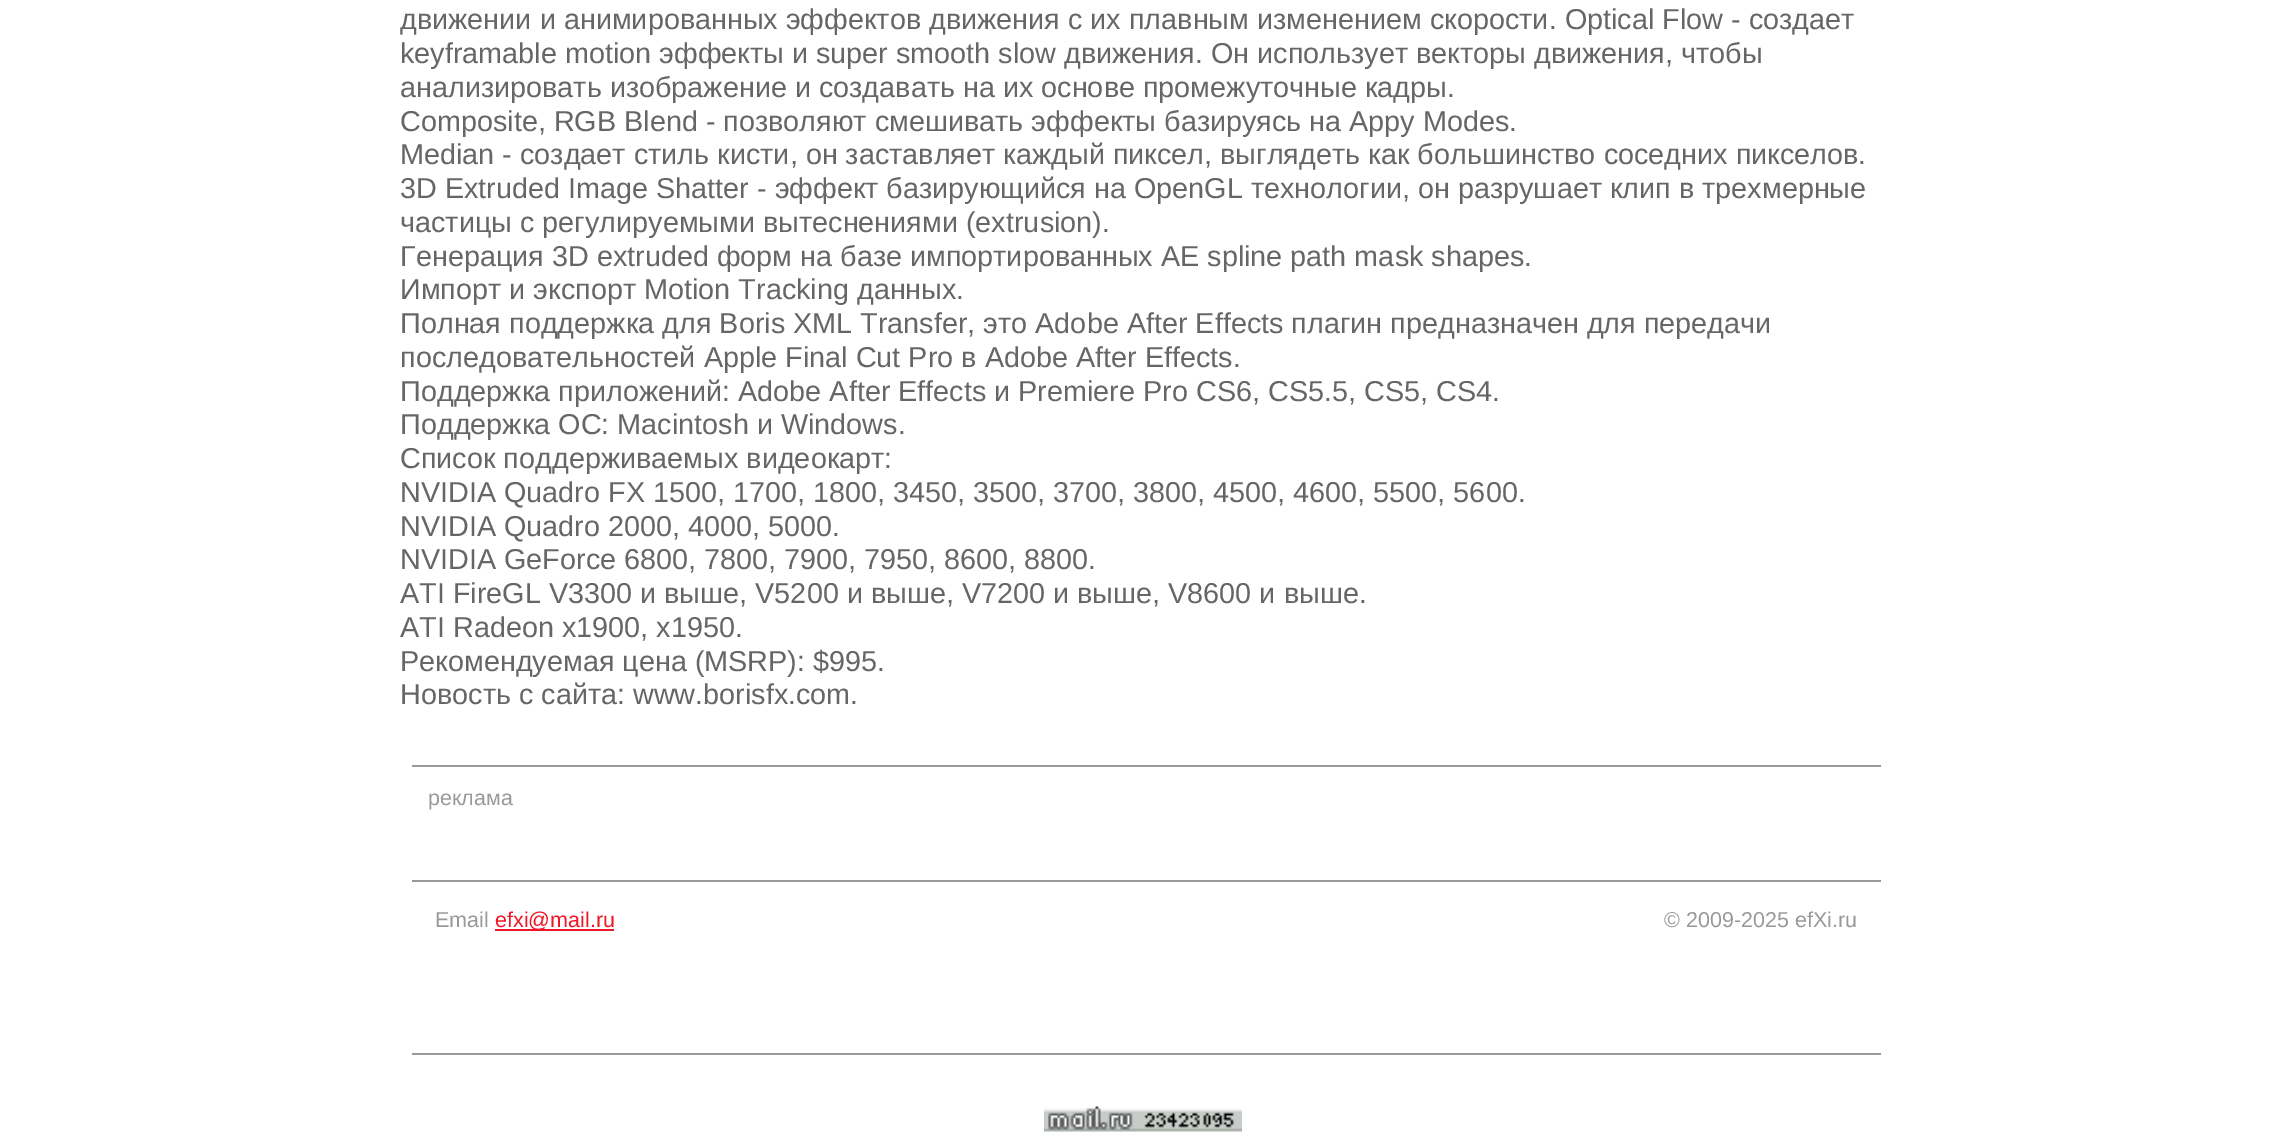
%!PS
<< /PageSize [2284 1146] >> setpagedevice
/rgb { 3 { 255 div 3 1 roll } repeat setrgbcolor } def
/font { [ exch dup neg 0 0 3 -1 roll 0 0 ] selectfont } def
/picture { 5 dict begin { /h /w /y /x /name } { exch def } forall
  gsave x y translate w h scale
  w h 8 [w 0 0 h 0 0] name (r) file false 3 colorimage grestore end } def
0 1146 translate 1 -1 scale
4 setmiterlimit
255 255 255 rgb
0 0 2284 1146 rectfill
[
  [412 765 1469 2 153 153 153]
  [412 880 1469 2 153 153 153]
  [495 929 119 2 238 22 38]
  [412 1053 1469 2 153 153 153]
] { aload pop rgb rectfill } forall
(img/1.rgb) 1044 1106 198 26 picture
/LiberationSans-Regular 28.8 font
102 102 102 rgb
[
  [(движении и анимированных эффектов движения с их плавным изменением скорости. Optical Flow - создает) 400 29]
  [(keyframable motion эффекты и super smooth slow движения. Он использует векторы движения, чтобы) 400 63]
  [(анализировать изображение и создавать на их основе промежуточные кадры.) 400 97]
  [(Composite, RGB Blend - позволяют смешивать эффекты базируясь на Appy Modes.) 400 131]
  [(Median - создает стиль кисти, он заставляет каждый пиксел, выглядеть как большинство соседних пикселов.) 400 164]
  [(3D Extruded Image Shatter - эффект базирующийся на OpenGL технологии, он разрушает клип в трехмерные) 400 198]
  [(частицы с регулируемыми вытеснениями \(extrusion\).) 400 232]
  [(Генерация 3D extruded форм на базе импортированных AE spline path mask shapes.) 400 266]
  [(Импорт и экспорт Motion Tracking данных.) 400 299]
  [(Полная поддержка для Boris XML Transfer, это Adobe After Effects плагин предназначен для передачи) 400 333]
  [(последовательностей Apple Final Cut Pro в Adobe After Effects.) 400 367]
  [(Поддержка приложений: Adobe After Effects и Premiere Pro CS6, CS5.5, CS5, CS4.) 400 401]
  [(Поддержка ОС: Macintosh и Windows.) 400 434]
  [(Список поддерживаемых видеокарт:) 400 468]
  [(NVIDIA Quadro FX 1500, 1700, 1800, 3450, 3500, 3700, 3800, 4500, 4600, 5500, 5600.) 400 502]
  [(NVIDIA Quadro 2000, 4000, 5000.) 400 536]
  [(NVIDIA GeForce 6800, 7800, 7900, 7950, 8600, 8800.) 400 569]
  [(ATI FireGL V3300 и выше, V5200 и выше, V7200 и выше, V8600 и выше.) 400 603]
  [(ATI Radeon x1900, x1950.) 400 637]
  [(Рекомендуемая цена \(MSRP\): $995.) 400 671]
  [(Новость с сайта: www.borisfx.com.) 400 704]
] { aload pop moveto show } forall
/LiberationSans-Regular 21.5 font
153 153 153 rgb
428 805 moveto (реклама) show
435 927 moveto (Email) show
238 22 38 rgb
495 927 moveto (efxi@mail.ru) show
153 153 153 rgb
1664 927 moveto (© 2009-2025 efXi.ru) show
showpage
